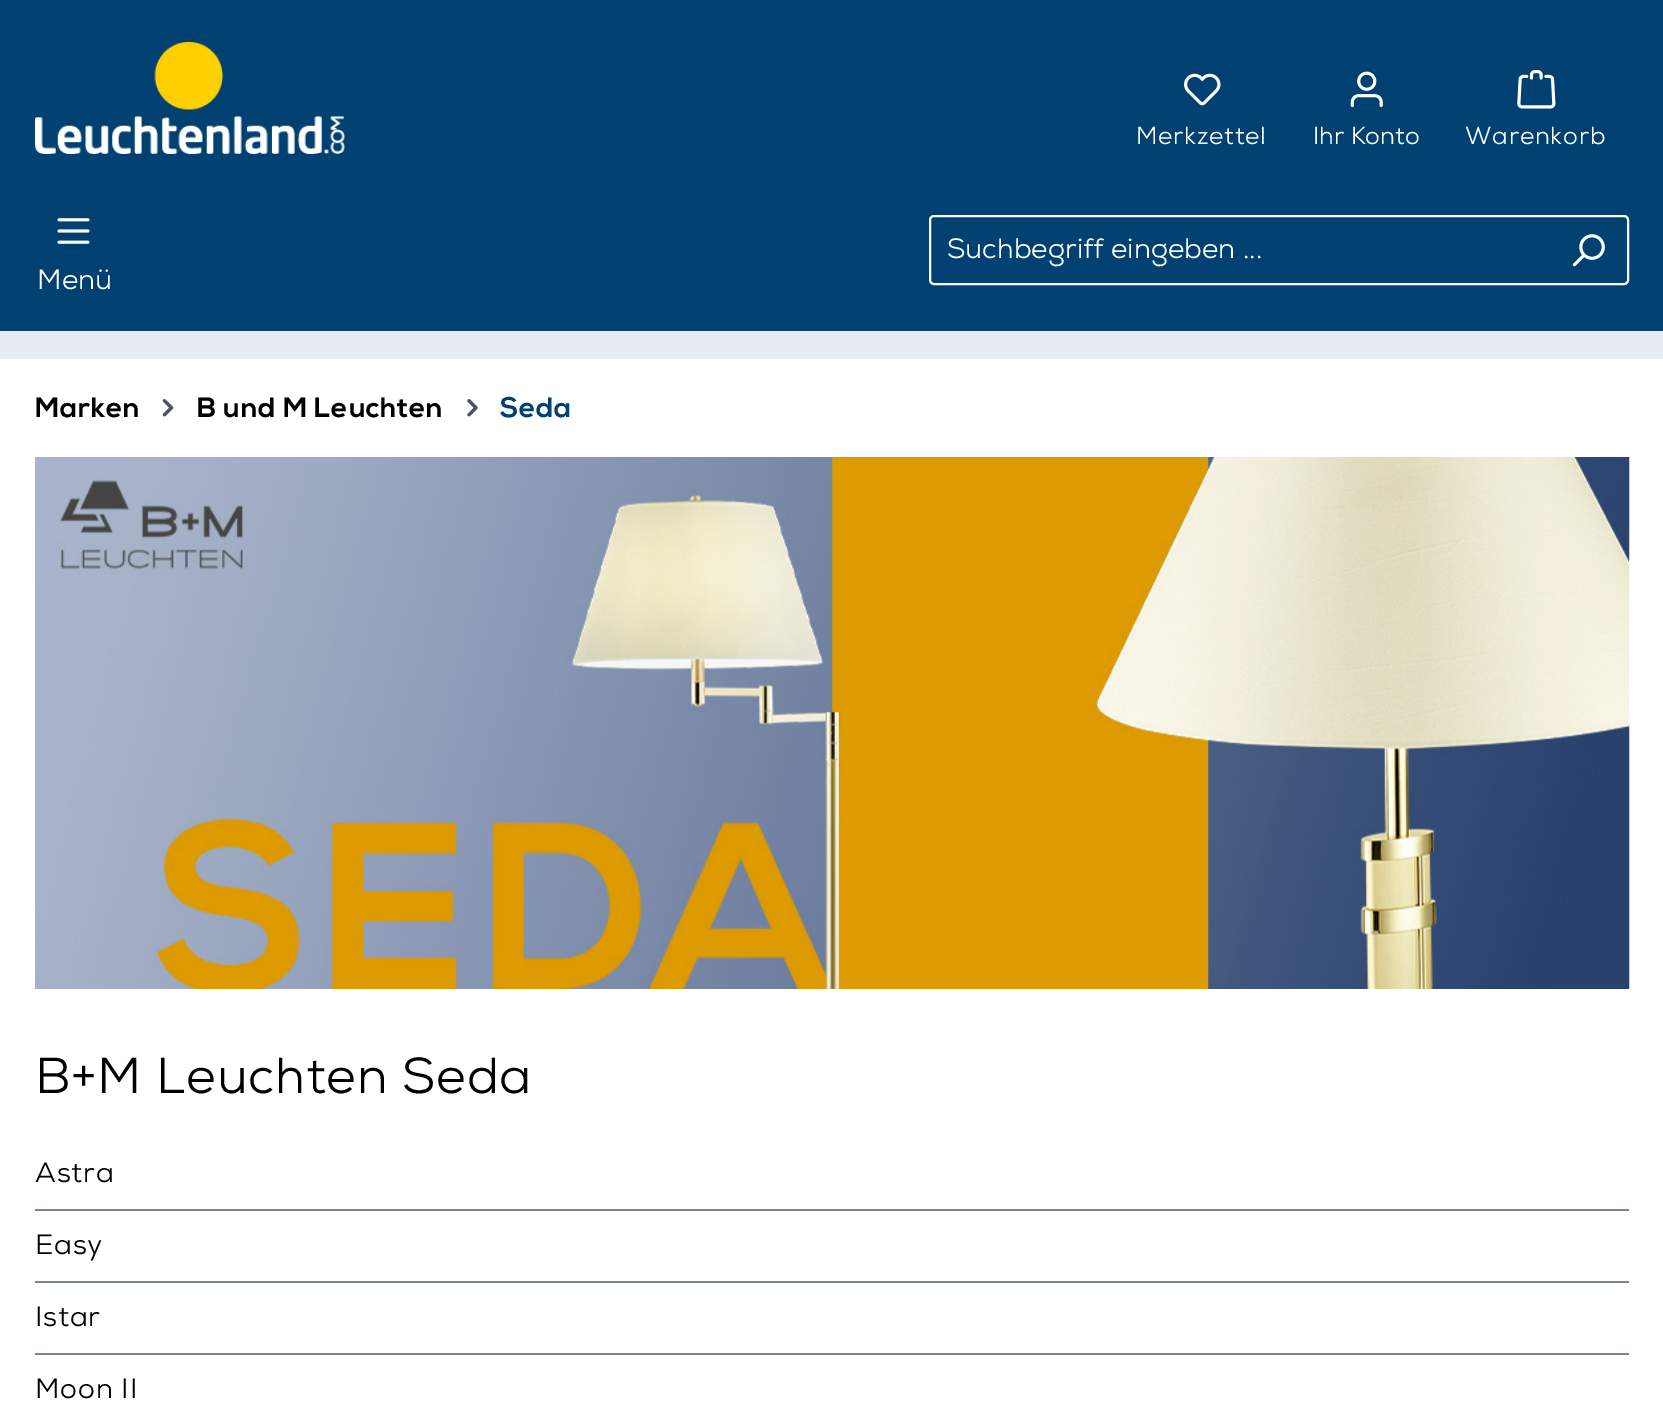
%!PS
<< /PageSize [1663 1415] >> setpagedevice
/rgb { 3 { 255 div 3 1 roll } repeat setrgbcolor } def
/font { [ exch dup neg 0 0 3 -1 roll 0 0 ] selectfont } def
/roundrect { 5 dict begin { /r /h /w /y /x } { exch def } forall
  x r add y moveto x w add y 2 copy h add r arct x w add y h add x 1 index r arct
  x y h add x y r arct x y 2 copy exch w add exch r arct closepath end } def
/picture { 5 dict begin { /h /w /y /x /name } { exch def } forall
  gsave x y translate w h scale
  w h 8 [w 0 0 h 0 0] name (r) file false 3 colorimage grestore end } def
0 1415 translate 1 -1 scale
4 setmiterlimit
255 255 255 rgb
0 0 1663 1415 rectfill
0 65 113 rgb
0 0 1663 331 rectfill
(img/1.rgb) 35 42 310 112 picture
(img/2.rgb) 1184 73 37 33 picture
(img/3.rgb) 1350 71 33 36 picture
(img/4.rgb) 1517 70 39 39 picture
255 255 255 rgb
2 setlinewidth
930 216 698 68 4 roundrect stroke
(img/5.rgb) 1572 234 33 33 picture
(img/6.rgb) 57 218 33 26 picture
230 236 241 rgb
0 331 1663 28 rectfill
(img/7.rgb) 162 399 12 18 picture
(img/8.rgb) 467 399 11 18 picture
(img/9.rgb) 35 457 1595 532 picture
[
  [35 1209 1594 2 121 132 144]
  [35 1281 1594 2 121 132 144]
  [35 1353 1594 2 121 132 144]
] { aload pop rgb rectfill } forall
/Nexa-Regular 24.5 font
255 255 255 rgb
1136 144 moveto 0.8 0 (Merkzettel) ashow
1313 144 moveto (Ihr Konto) show
1465 144 moveto 0.8 0 (Warenkorb) ashow
/Nexa-Regular 28 font
947 258 moveto (Suchbegriff eingeben ...) show
37 289 moveto (Menü) show
/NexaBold-Bold 28 font
0 0 0 rgb
35 417 moveto 0.8 0 (Marken) ashow
197 417 moveto 0.8 0 (B und M Leuchten) ashow
0 65 113 rgb
500 417 moveto 0.8 0 (Seda) ashow
/Nexa-Regular 50.5 font
0 0 0 rgb
35 1093 moveto 0.8 0 (B+M Leuchten Seda) ashow
/Nexa-Regular 28 font
35 1182 moveto 0.8 0 (Astra) ashow
35 1254 moveto 0.8 0 (Easy) ashow
35 1326 moveto 0.8 0 (Istar) ashow
35 1398 moveto 0.8 0 (Moon II) ashow
showpage
